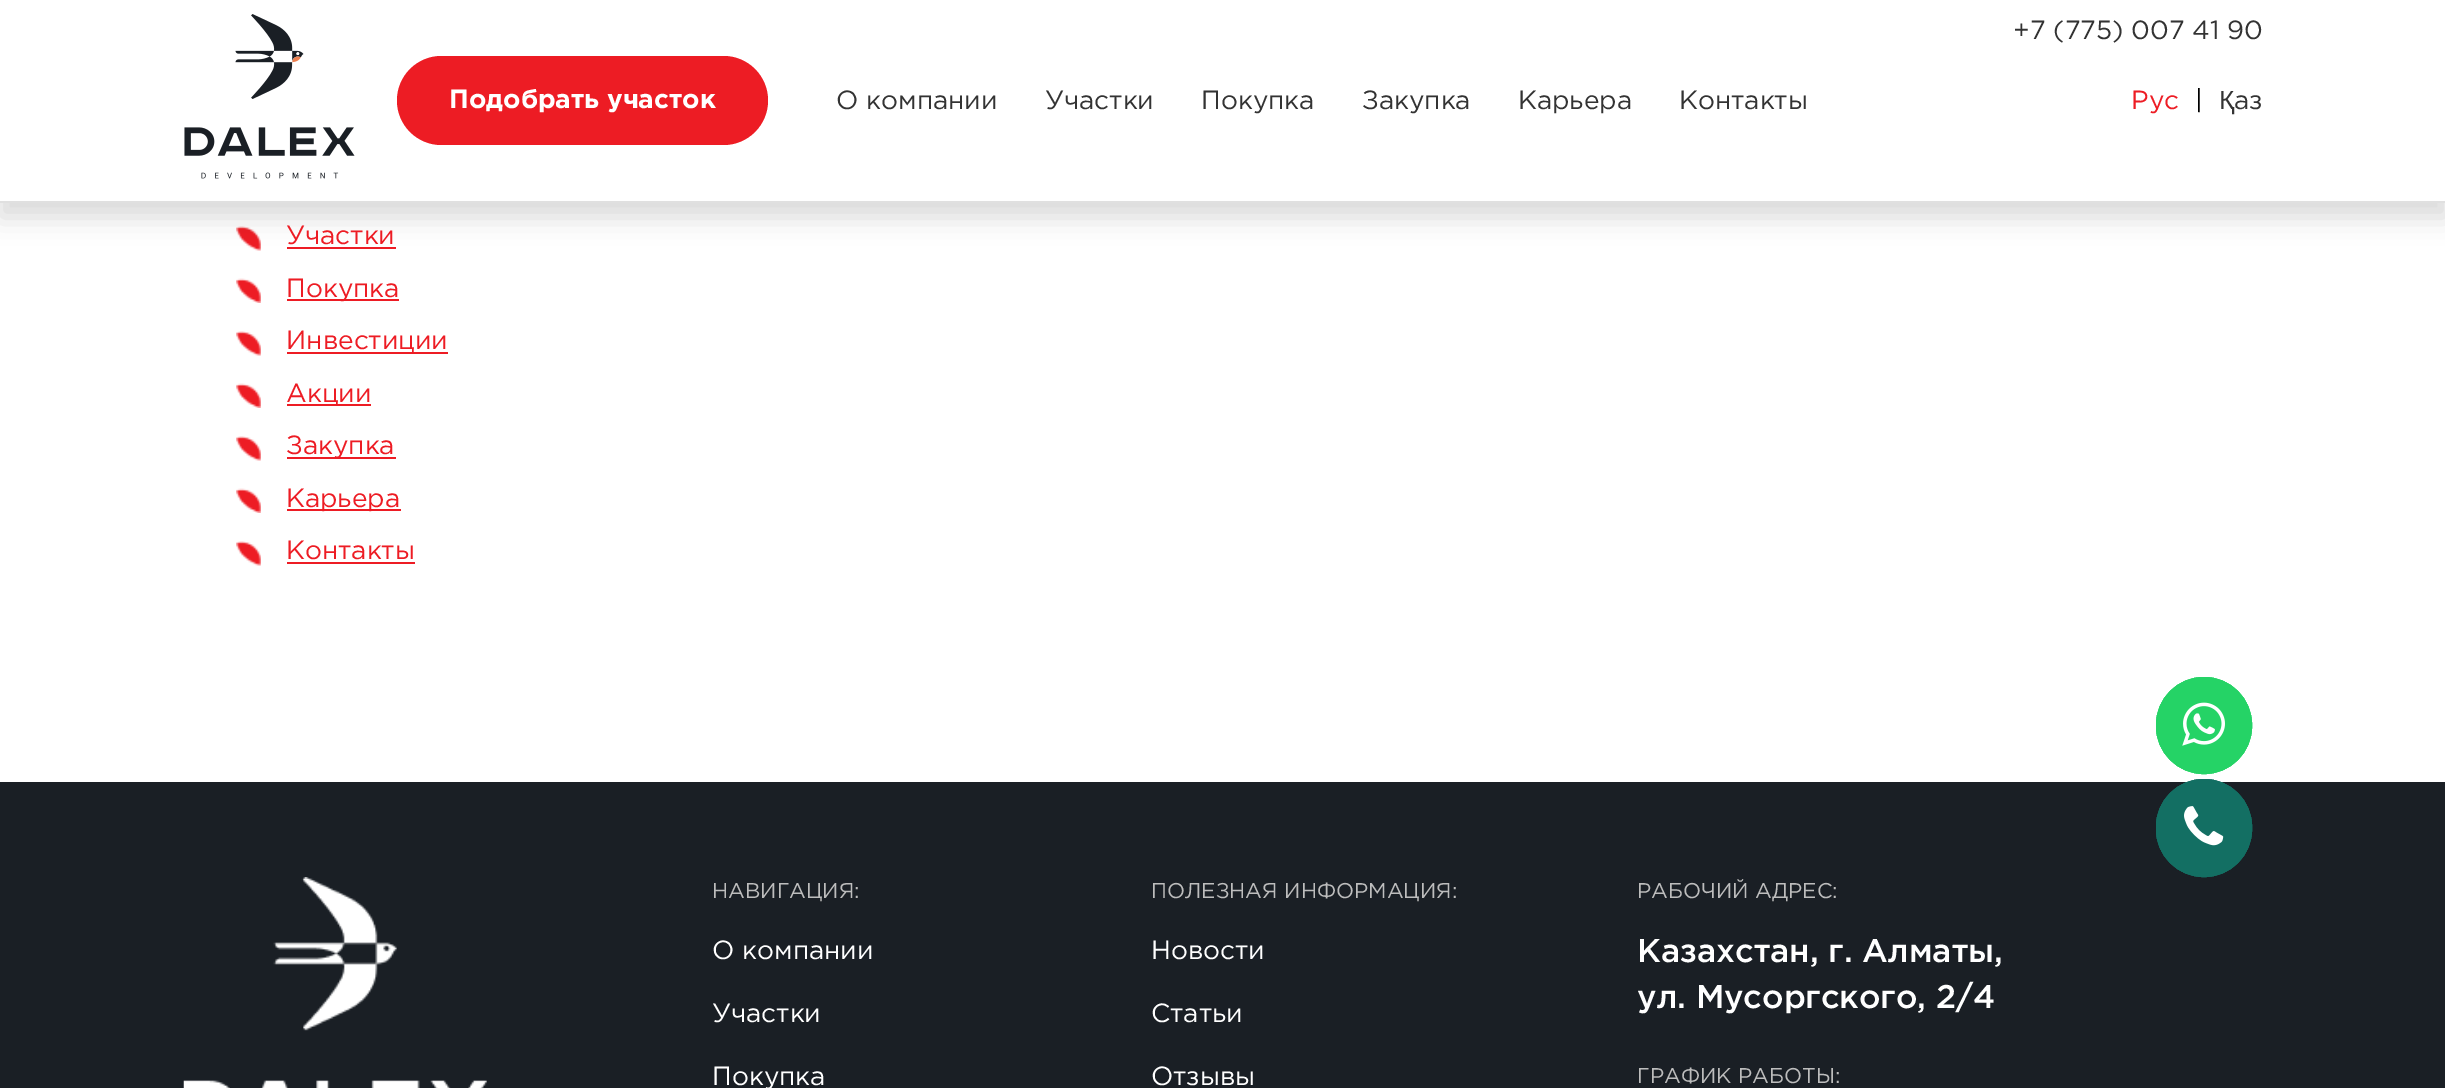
%!PS
<< /PageSize [2445 1088] /PageUsesTransparency true >> setpagedevice
/rgb { 3 { 255 div 3 1 roll } repeat setrgbcolor } def
/font { [ exch dup neg 0 0 3 -1 roll 0 0 ] selectfont } def
/alpha { dup .setfillconstantalpha .setstrokeconstantalpha } def
/roundrect { 5 dict begin { /r /h /w /y /x } { exch def } forall
  x r add y moveto x w add y 2 copy h add r arct x w add y h add x 1 index r arct
  x y h add x y r arct x y 2 copy exch w add exch r arct closepath end } def
/shadow { 12 dict begin { /a /b /q /h /w /y /x } { exch def } forall gsave /was 0 def
  9 -2 -9 { dup b mul 4 div /e exch def 1 sub .425 mul 2.718 exch exp 1 add a .99 .min exch div /now exch def
    1 1 now sub 1 was sub div sub alpha /was now def
    w h .min e 2 mul add 0 gt { x e sub y e sub w e 2 mul add h e 2 mul add
      q e add b .6 mul add w h .min 2 div e add .min 0 .max roundrect fill } if } for grestore end } def
/picture { 5 dict begin { /h /w /y /x /name } { exch def } forall
  gsave x y translate w h scale
  w h 8 [w 0 0 h 0 0] name (r) file false 3 colorimage grestore end } def
0 .pushpdf14devicefilter
0 1088 translate 1 -1 scale
4 setmiterlimit
255 255 255 rgb
0 0 2445 1088 rectfill
(img/2.rgb) 236 226 25 25 picture
237 28 36 rgb
287 247 109 2 rectfill
0 0 0 rgb
0 14 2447 203 0 13 0.15 shadow
255 255 255 rgb
0 0 2445 201 rectfill
224 224 224 rgb
0 201 2445 2 rectfill
(img/1.rgb) 184 14 171 165 picture
237 28 36 rgb
397 56 371 89 44.5 roundrect fill
(img/3.rgb) 236 278 25 25 picture
287 299 112 2 rectfill
(img/2.rgb) 236 331 25 25 picture
287 352 161 2 rectfill
(img/3.rgb) 236 383 25 25 picture
287 404 84 2 rectfill
(img/2.rgb) 236 436 25 25 picture
287 457 109 2 rectfill
(img/3.rgb) 236 488 25 25 picture
287 509 114 2 rectfill
(img/2.rgb) 236 541 25 25 picture
287 562 128 2 rectfill
37 211 102 rgb
2156 677 96 97 48 roundrect fill
(img/4.rgb) 2182 702 43 44 picture
9 setlinewidth
2160.5 681.5 87 88 43.5 roundrect stroke
2160.5 681.5 87 88 43.5 roundrect stroke
26 31 37 rgb
0 782 2445 306 rectfill
19 111 99 rgb
2156 779 96 98 48 roundrect fill
(img/5.rgb) 2184 806 40 40 picture
2160.5 783.5 87 89 43.5 roundrect stroke
2160.5 783.5 87 89 43.5 roundrect stroke
(img/6.rgb) 183 877 304 211 picture
/Gotham-Regular 26.25 font
51 51 51 rgb
2013 39 moveto (+7 \(775\) 007 41 90) show
/Gotham-Bold 26.25 font
255 255 255 rgb
449 108 moveto (Подобрать участок) show
/Gotham-Regular 26.25 font
51 51 51 rgb
[
  [(О компании) 836 109]
  [(Участки) 1045 109]
  [(Покупка) 1201 109]
  [(Закупка) 1362 109]
  [(Карьера) 1518 109]
  [(Контакты) 1679 109]
] { aload pop moveto show } forall
237 28 36 rgb
2131 109 moveto (Рус) show
0 0 0 rgb
2195 109 moveto (|) show
/LiberationSans-Regular 26.25 font
51 51 51 rgb
2219 109 moveto (Қ) show
/Gotham-Regular 26.25 font
2234 109 moveto (аз) show
237 28 36 rgb
[
  [(Участки) 286 244]
  [(Покупка) 286 297]
  [(Инвестиции) 286 349]
  [(Акции) 286 402]
  [(Закупка) 286 454]
  [(Карьера) 286 507]
  [(Контакты) 286 559]
] { aload pop moveto show } forall
/Gotham-Regular 21.3 font
189 189 189 rgb
712 898 moveto (НАВИГАЦИЯ:) show
/Gotham-Regular 26.25 font
255 255 255 rgb
[
  [(О компании) 712 959]
  [(Участки) 712 1022]
  [(Покупка) 712 1085]
] { aload pop moveto show } forall
/Gotham-Regular 21.3 font
189 189 189 rgb
1151 898 moveto (ПОЛЕЗНАЯ ИНФОРМАЦИЯ:) show
/Gotham-Regular 26.25 font
255 255 255 rgb
[
  [(Новости) 1151 959]
  [(Статьи) 1151 1022]
  [(Отзывы) 1151 1085]
] { aload pop moveto show } forall
/Gotham-Regular 21.3 font
189 189 189 rgb
1637 898 moveto (РАБОЧИЙ АДРЕС:) show
/Gotham-Medium 32.75 font
255 255 255 rgb
1637 962 moveto (Казахстан, г. Алматы,) show
1637 1008 moveto (ул. Мусоргского, 2/4) show
/Gotham-Regular 21.3 font
189 189 189 rgb
1637 1083 moveto (ГРАФИК РАБОТЫ:) show
.poppdf14devicefilter showpage
